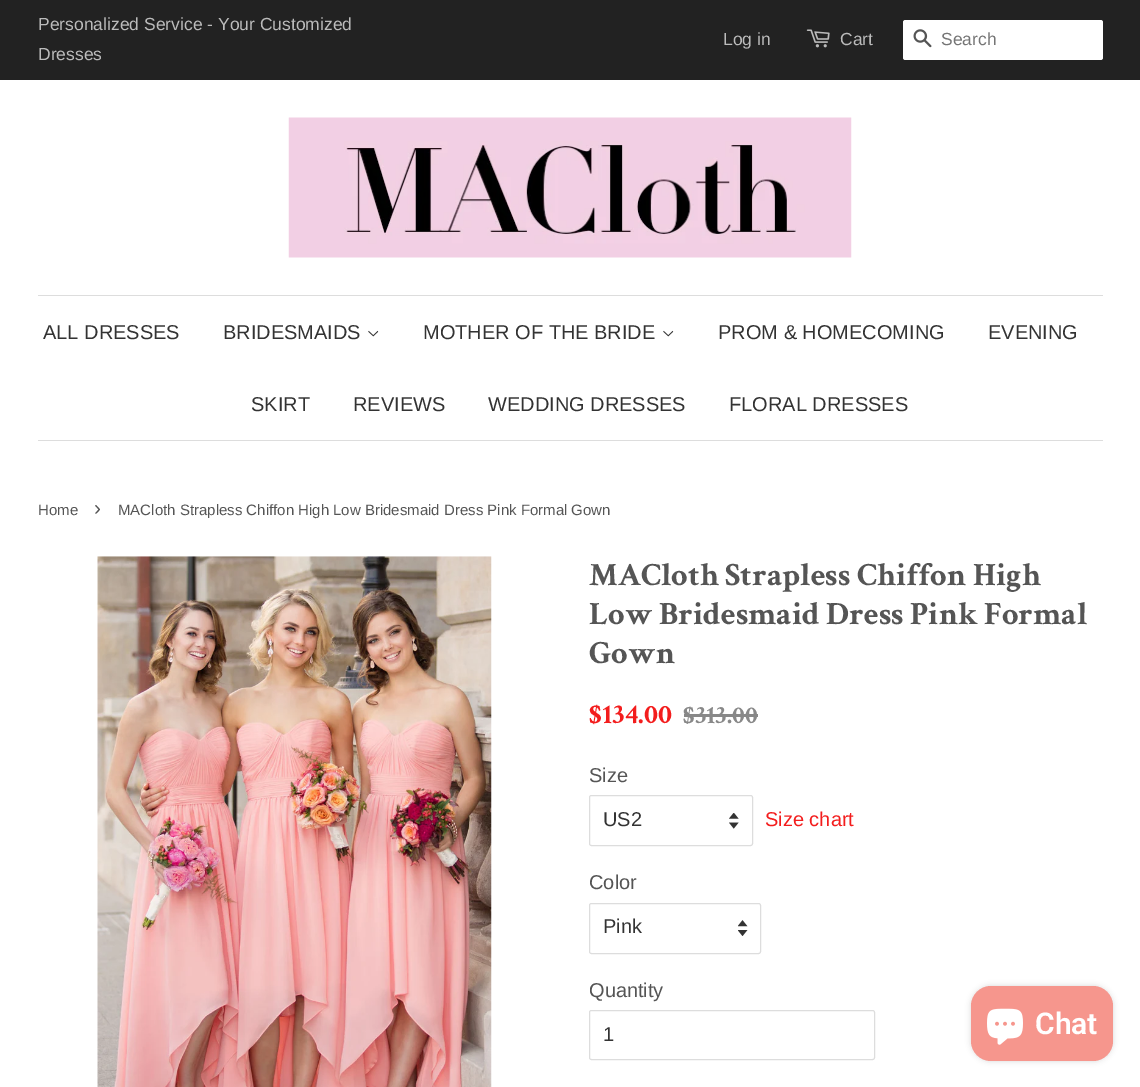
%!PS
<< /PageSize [1140 1087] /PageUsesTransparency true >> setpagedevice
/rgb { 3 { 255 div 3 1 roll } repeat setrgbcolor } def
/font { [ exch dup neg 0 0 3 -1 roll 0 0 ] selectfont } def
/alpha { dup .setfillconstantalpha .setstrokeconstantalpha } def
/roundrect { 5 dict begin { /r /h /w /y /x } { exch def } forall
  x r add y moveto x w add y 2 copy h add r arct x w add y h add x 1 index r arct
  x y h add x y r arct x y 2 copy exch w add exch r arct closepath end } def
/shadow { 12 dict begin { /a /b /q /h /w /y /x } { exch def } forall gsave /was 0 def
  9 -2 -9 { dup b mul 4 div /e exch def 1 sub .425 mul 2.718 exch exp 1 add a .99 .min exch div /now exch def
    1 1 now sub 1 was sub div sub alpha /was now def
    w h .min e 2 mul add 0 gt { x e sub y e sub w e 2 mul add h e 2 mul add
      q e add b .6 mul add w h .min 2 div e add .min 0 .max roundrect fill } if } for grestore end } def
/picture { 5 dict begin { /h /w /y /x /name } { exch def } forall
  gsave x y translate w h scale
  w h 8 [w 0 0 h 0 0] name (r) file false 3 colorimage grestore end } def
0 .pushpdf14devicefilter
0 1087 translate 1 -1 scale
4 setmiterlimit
255 255 255 rgb
0 0 1140 1087 rectfill
34 34 34 rgb
0 0 1140 80 rectfill
(img/1.rgb) 806 29 24 19 picture
255 255 255 rgb
903 20 200 40 2.5 roundrect fill
(img/2.rgb) 913 29 19 19 picture
(img/3.rgb) 288 117 564 141 picture
221 221 221 rgb
38 295 1065 1 rectfill
38 440 1065 1 rectfill
(img/4.rgb) 368 330 11 7 picture
(img/4.rgb) 663 330 11 7 picture
(img/5.rgb) 97 556 395 531 picture
136 136 136 rgb
684 714 74 3 rectfill
(img/6.rgb) 729 813 10 16 picture
221 221 221 rgb
589.5 795.5 163 50 2 roundrect stroke
(img/7.rgb) 738 920 10 16 picture
589.5 903.5 171 50 2 roundrect stroke
589.5 1010.5 285 49 2 roundrect stroke
0 0 0 rgb
971 986 142 75 20 3 0.15 shadow
246 150 141 rgb
971 986 142 75 20 roundrect fill
(img/8.rgb) 987 1008 36 37 picture
/LiberationSans-Regular 17.5 font
187 187 187 rgb
[
  [(Personalized Service - Your Customized) 38 30]
  [(Dresses) 38 60]
  [(Log in) 723 45]
  [(Cart) 840 45]
] { aload pop moveto show } forall
117 117 117 rgb
941 45 moveto (Search) show
/LiberationSans-Regular 20 font
51 51 51 rgb
[
  [(ALL DRESSES) 43 339]
  [(BRIDESMAIDS) 223 339]
  [(MOTHER OF THE BRIDE) 423 339]
  [(PROM & HOMECOMING) 718 339]
  [(EVENING) 988 339]
  [(SKIRT) 251 411]
  [(REVIEWS) 353 411]
  [(WEDDING DRESSES) 488 411]
  [(FLORAL DRESSES) 729 411]
] { aload pop moveto show } forall
/LiberationSans-Regular 15 font
85 85 85 rgb
38 515 moveto (Home) show
/LiberationSans-Regular 21 font
94 515 moveto (›) show
/LiberationSans-Regular 15 font
118 515 moveto (MACloth Strapless Chiffon High Low Bridesmaid Dress Pink Formal Gown) show
/CrimsonText-Bold 32.5 font
[
  [(MACloth Strapless Chiffon High) 589 585]
  [(Low Bridesmaid Dress Pink Formal) 589 624]
  [(Gown) 589 663]
] { aload pop moveto show } forall
/CrimsonText-Bold 28 font
243 29 29 rgb
589 723 moveto ($134.00) show
/CrimsonText-Bold 25.5 font
136 136 136 rgb
683 723 moveto ($313.00) show
/LiberationSans-Regular 20 font
85 85 85 rgb
589 782 moveto (Size) show
51 51 51 rgb
603 826 moveto (US2) show
243 29 29 rgb
765 826 moveto (Size chart) show
85 85 85 rgb
589 889 moveto (Color) show
51 51 51 rgb
603 933 moveto (Pink) show
85 85 85 rgb
589 997 moveto (Quantity) show
51 51 51 rgb
603 1041 moveto (1) show
/Roboto-SemiBold 30 font
255 255 255 rgb
1035 1034 moveto (Chat) show
.poppdf14devicefilter showpage
